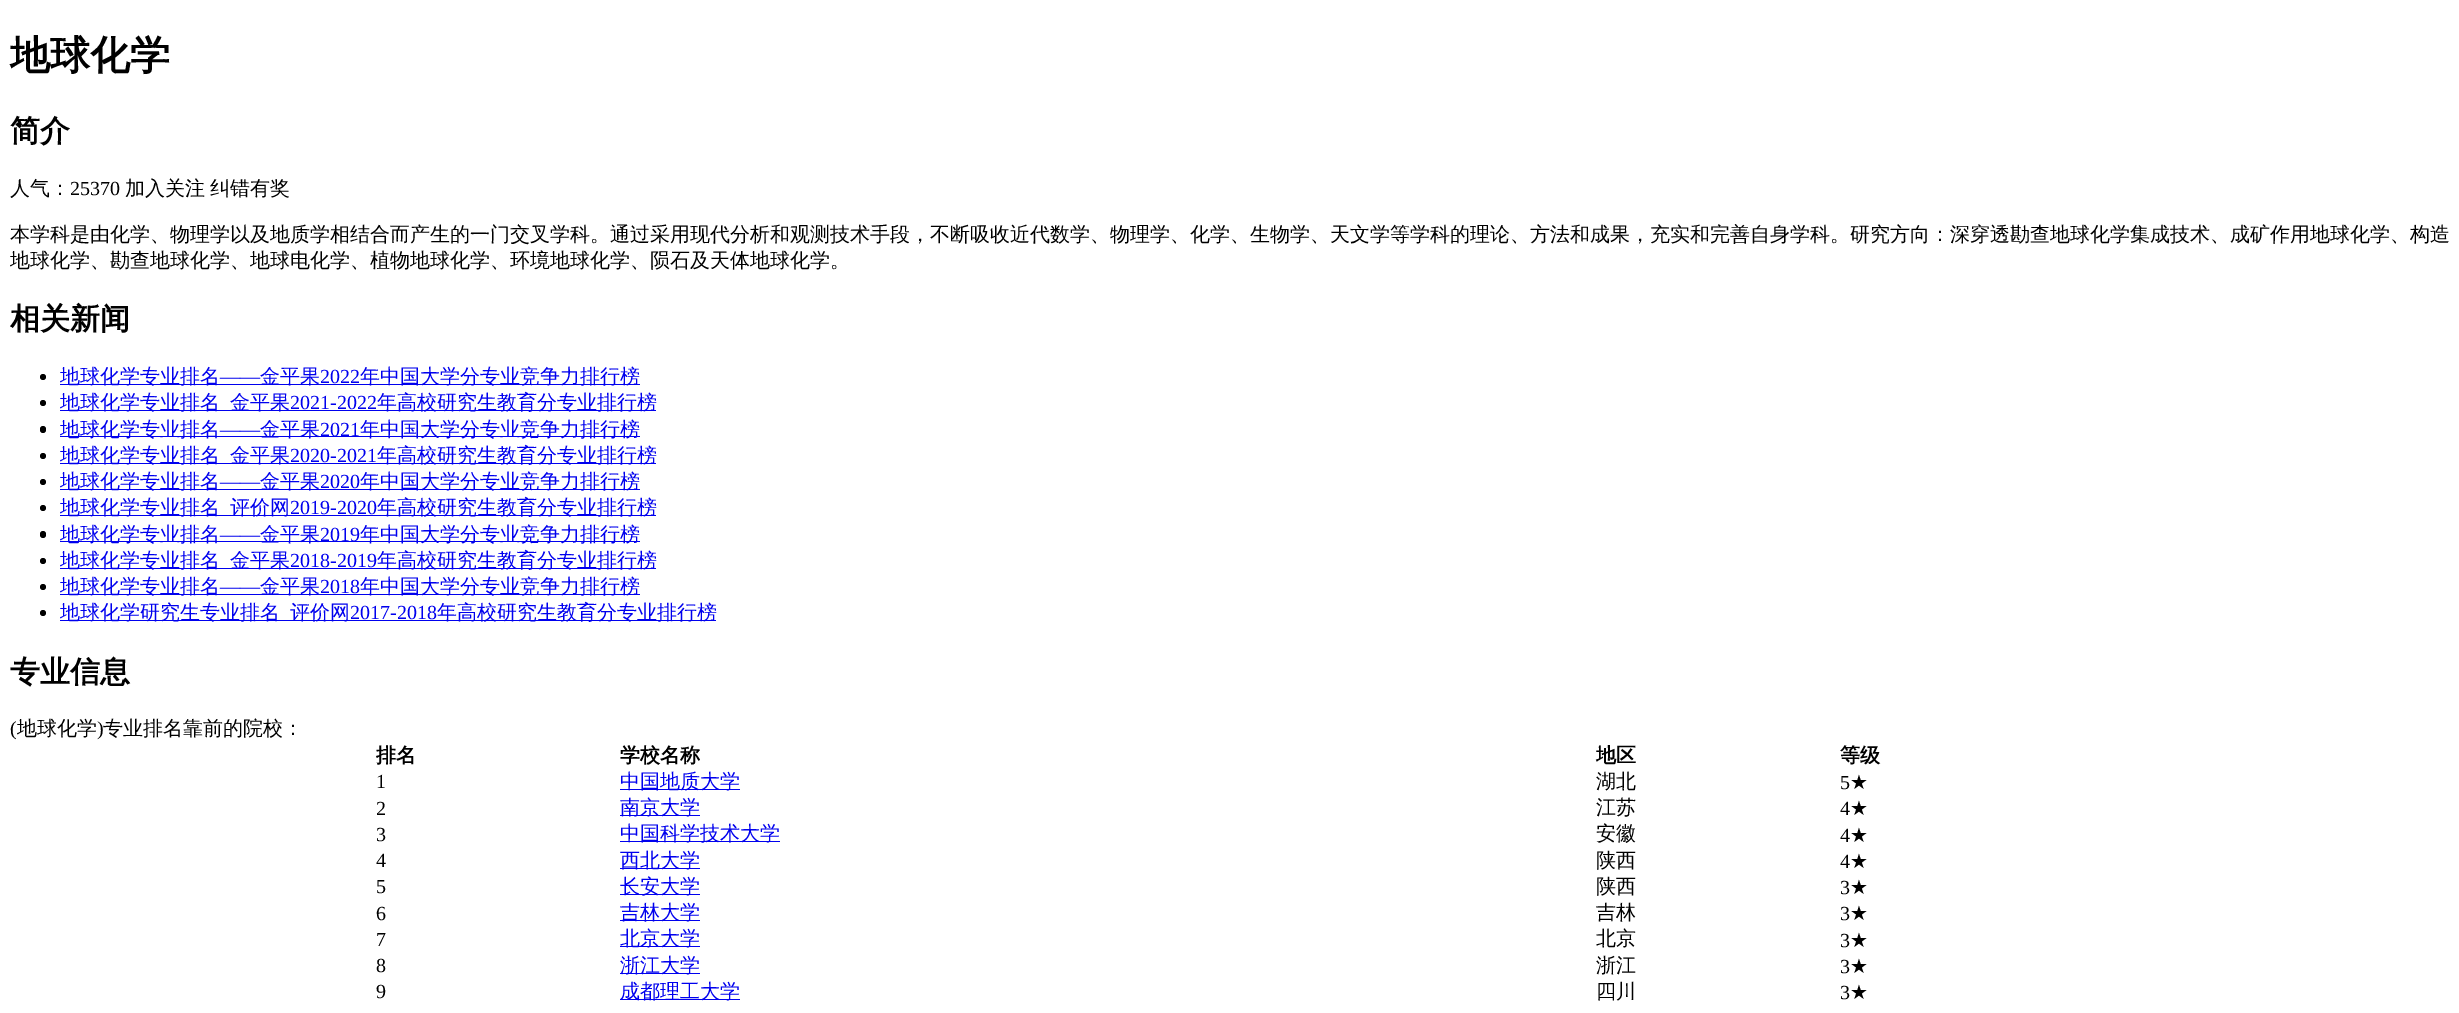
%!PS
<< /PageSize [2459 1013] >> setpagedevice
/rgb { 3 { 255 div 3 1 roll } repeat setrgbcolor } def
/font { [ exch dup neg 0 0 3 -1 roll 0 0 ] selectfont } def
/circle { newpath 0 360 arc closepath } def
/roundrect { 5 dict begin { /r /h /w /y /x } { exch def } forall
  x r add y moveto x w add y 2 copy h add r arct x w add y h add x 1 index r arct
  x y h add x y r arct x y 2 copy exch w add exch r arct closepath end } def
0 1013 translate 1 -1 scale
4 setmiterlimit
255 255 255 rgb
0 0 2459 1013 rectfill
0 0 0 rgb
43 377 3 circle fill
0 0 238 rgb
60 384 580 1 rectfill
0 0 0 rgb
43 403 3 circle fill
0 0 238 rgb
60 410 596 1 rectfill
0 0 0 rgb
40 426 6 7 3 roundrect fill
0 0 238 rgb
60 436 580 1 rectfill
0 0 0 rgb
43 456 3 circle fill
0 0 238 rgb
60 463 596 1 rectfill
0 0 0 rgb
43 482 3 circle fill
0 0 238 rgb
60 489 580 1 rectfill
0 0 0 rgb
43 508 3 circle fill
0 0 238 rgb
60 515 596 1 rectfill
0 0 0 rgb
40 531 6 7 3 roundrect fill
0 0 238 rgb
60 541 580 1 rectfill
0 0 0 rgb
43 561 3 circle fill
0 0 238 rgb
60 568 596 1 rectfill
0 0 0 rgb
43 587 3 circle fill
0 0 238 rgb
60 594 580 1 rectfill
0 0 0 rgb
43 613 3 circle fill
[
  [60 620 656 1 0 0 238]
  [620 789 120 1 0 0 238]
  [620 815 80 1 0 0 238]
  [620 841 160 1 0 0 238]
  [620 868 80 1 0 0 238]
  [620 894 80 1 0 0 238]
  [620 920 80 1 0 0 238]
  [620 946 80 1 0 0 238]
  [620 973 80 1 0 0 238]
  [620 999 120 1 0 0 238]
] { aload pop rgb rectfill } forall
/WenQuanYiZenHei-Bold 40 font
0 0 0 rgb
10 69 moveto (地球化学) show
/WenQuanYiZenHei-Bold 30 font
10 141 moveto (简介) show
/WenQuanYiZenHei-Medium 20 font
10 195 moveto (人气：) show
/LiberationSerif-Regular 20 font
70 195 moveto (25370) show
/WenQuanYiZenHei-Medium 20 font
[
  [(加入关注) 125 195]
  [(纠错有奖) 210 195]
  [(本学科是由化学、物理学以及地质学相结合而产生的一门交叉学科。通过采用现代分析和观测技术手段，不断吸收近代数学、物理学、化学、生物学、天文学等学科的理论、方法和成果，充实和完善自身学科。研究方向：深穿透勘查地球化学集成技术、成矿作用地球化学、构造) 10 241]
  [(地球化学、勘查地球化学、地球电化学、植物地球化学、环境地球化学、陨石及天体地球化学。) 10 267]
] { aload pop moveto show } forall
/WenQuanYiZenHei-Bold 30 font
10 329 moveto (相关新闻) show
/WenQuanYiZenHei-Medium 20 font
0 0 238 rgb
60 383 moveto (地球化学专业排名) show
/LiberationSerif-Regular 20 font
220 383 moveto (——) show
/WenQuanYiZenHei-Medium 20 font
260 383 moveto (金平果) show
/LiberationSerif-Regular 20 font
320 383 moveto (2022) show
/WenQuanYiZenHei-Medium 20 font
[
  [(年中国大学分专业竞争力排行榜) 360 383]
  [(地球化学专业排名) 60 409]
  [(金平果) 230 409]
] { aload pop moveto show } forall
/LiberationSerif-Regular 20 font
290 409 moveto (2021-2022) show
/WenQuanYiZenHei-Medium 20 font
377 409 moveto (年高校研究生教育分专业排行榜) show
60 436 moveto (地球化学专业排名) show
/LiberationSerif-Regular 20 font
220 436 moveto (——) show
/WenQuanYiZenHei-Medium 20 font
260 436 moveto (金平果) show
/LiberationSerif-Regular 20 font
320 436 moveto (2021) show
/WenQuanYiZenHei-Medium 20 font
[
  [(年中国大学分专业竞争力排行榜) 360 436]
  [(地球化学专业排名) 60 462]
  [(金平果) 230 462]
] { aload pop moveto show } forall
/LiberationSerif-Regular 20 font
290 462 moveto (2020-2021) show
/WenQuanYiZenHei-Medium 20 font
377 462 moveto (年高校研究生教育分专业排行榜) show
60 488 moveto (地球化学专业排名) show
/LiberationSerif-Regular 20 font
220 488 moveto (——) show
/WenQuanYiZenHei-Medium 20 font
260 488 moveto (金平果) show
/LiberationSerif-Regular 20 font
320 488 moveto (2020) show
/WenQuanYiZenHei-Medium 20 font
[
  [(年中国大学分专业竞争力排行榜) 360 488]
  [(地球化学专业排名) 60 514]
  [(评价网) 230 514]
] { aload pop moveto show } forall
/LiberationSerif-Regular 20 font
290 514 moveto (2019-2020) show
/WenQuanYiZenHei-Medium 20 font
377 514 moveto (年高校研究生教育分专业排行榜) show
60 541 moveto (地球化学专业排名) show
/LiberationSerif-Regular 20 font
220 541 moveto (——) show
/WenQuanYiZenHei-Medium 20 font
260 541 moveto (金平果) show
/LiberationSerif-Regular 20 font
320 541 moveto (2019) show
/WenQuanYiZenHei-Medium 20 font
[
  [(年中国大学分专业竞争力排行榜) 360 541]
  [(地球化学专业排名) 60 567]
  [(金平果) 230 567]
] { aload pop moveto show } forall
/LiberationSerif-Regular 20 font
290 567 moveto (2018-2019) show
/WenQuanYiZenHei-Medium 20 font
377 567 moveto (年高校研究生教育分专业排行榜) show
60 593 moveto (地球化学专业排名) show
/LiberationSerif-Regular 20 font
220 593 moveto (——) show
/WenQuanYiZenHei-Medium 20 font
260 593 moveto (金平果) show
/LiberationSerif-Regular 20 font
320 593 moveto (2018) show
/WenQuanYiZenHei-Medium 20 font
[
  [(年中国大学分专业竞争力排行榜) 360 593]
  [(地球化学研究生专业排名) 60 619]
  [(评价网) 290 619]
] { aload pop moveto show } forall
/LiberationSerif-Regular 20 font
350 619 moveto (2017-2018) show
/WenQuanYiZenHei-Medium 20 font
437 619 moveto (年高校研究生教育分专业排行榜) show
/WenQuanYiZenHei-Bold 30 font
0 0 0 rgb
10 682 moveto (专业信息) show
/LiberationSerif-Regular 20 font
10 735 moveto (\() show
/WenQuanYiZenHei-Medium 20 font
17 735 moveto (地球化学) show
/LiberationSerif-Regular 20 font
97 735 moveto (\)) show
/WenQuanYiZenHei-Medium 20 font
103 735 moveto (专业排名靠前的院校：) show
/WenQuanYiZenHei-Bold 20 font
[
  [(排名) 376 762]
  [(学校名称) 620 762]
  [(地区) 1596 762]
  [(等级) 1840 762]
] { aload pop moveto show } forall
/LiberationSerif-Regular 20 font
376 788 moveto (1) show
/WenQuanYiZenHei-Medium 20 font
0 0 238 rgb
620 788 moveto (中国地质大学) show
0 0 0 rgb
1596 788 moveto (湖北) show
/LiberationSerif-Regular 20 font
1840 789 moveto (5) show
/DejaVuSans-Regular 20 font
1850 789 moveto (★) show
/LiberationSerif-Regular 20 font
376 815 moveto (2) show
/WenQuanYiZenHei-Medium 20 font
0 0 238 rgb
620 814 moveto (南京大学) show
0 0 0 rgb
1596 814 moveto (江苏) show
/LiberationSerif-Regular 20 font
1840 815 moveto (4) show
/DejaVuSans-Regular 20 font
1850 815 moveto (★) show
/LiberationSerif-Regular 20 font
376 841 moveto (3) show
/WenQuanYiZenHei-Medium 20 font
0 0 238 rgb
620 840 moveto (中国科学技术大学) show
0 0 0 rgb
1596 840 moveto (安徽) show
/LiberationSerif-Regular 20 font
1840 842 moveto (4) show
/DejaVuSans-Regular 20 font
1850 842 moveto (★) show
/LiberationSerif-Regular 20 font
376 867 moveto (4) show
/WenQuanYiZenHei-Medium 20 font
0 0 238 rgb
620 867 moveto (西北大学) show
0 0 0 rgb
1596 867 moveto (陕西) show
/LiberationSerif-Regular 20 font
1840 868 moveto (4) show
/DejaVuSans-Regular 20 font
1850 868 moveto (★) show
/LiberationSerif-Regular 20 font
376 893 moveto (5) show
/WenQuanYiZenHei-Medium 20 font
0 0 238 rgb
620 893 moveto (长安大学) show
0 0 0 rgb
1596 893 moveto (陕西) show
/LiberationSerif-Regular 20 font
1840 894 moveto (3) show
/DejaVuSans-Regular 20 font
1850 894 moveto (★) show
/LiberationSerif-Regular 20 font
376 920 moveto (6) show
/WenQuanYiZenHei-Medium 20 font
0 0 238 rgb
620 919 moveto (吉林大学) show
0 0 0 rgb
1596 919 moveto (吉林) show
/LiberationSerif-Regular 20 font
1840 920 moveto (3) show
/DejaVuSans-Regular 20 font
1850 920 moveto (★) show
/LiberationSerif-Regular 20 font
376 946 moveto (7) show
/WenQuanYiZenHei-Medium 20 font
0 0 238 rgb
620 945 moveto (北京大学) show
0 0 0 rgb
1596 945 moveto (北京) show
/LiberationSerif-Regular 20 font
1840 947 moveto (3) show
/DejaVuSans-Regular 20 font
1850 947 moveto (★) show
/LiberationSerif-Regular 20 font
376 972 moveto (8) show
/WenQuanYiZenHei-Medium 20 font
0 0 238 rgb
620 972 moveto (浙江大学) show
0 0 0 rgb
1596 972 moveto (浙江) show
/LiberationSerif-Regular 20 font
1840 973 moveto (3) show
/DejaVuSans-Regular 20 font
1850 973 moveto (★) show
/LiberationSerif-Regular 20 font
376 998 moveto (9) show
/WenQuanYiZenHei-Medium 20 font
0 0 238 rgb
620 998 moveto (成都理工大学) show
0 0 0 rgb
1596 998 moveto (四川) show
/LiberationSerif-Regular 20 font
1840 999 moveto (3) show
/DejaVuSans-Regular 20 font
1850 999 moveto (★) show
showpage
